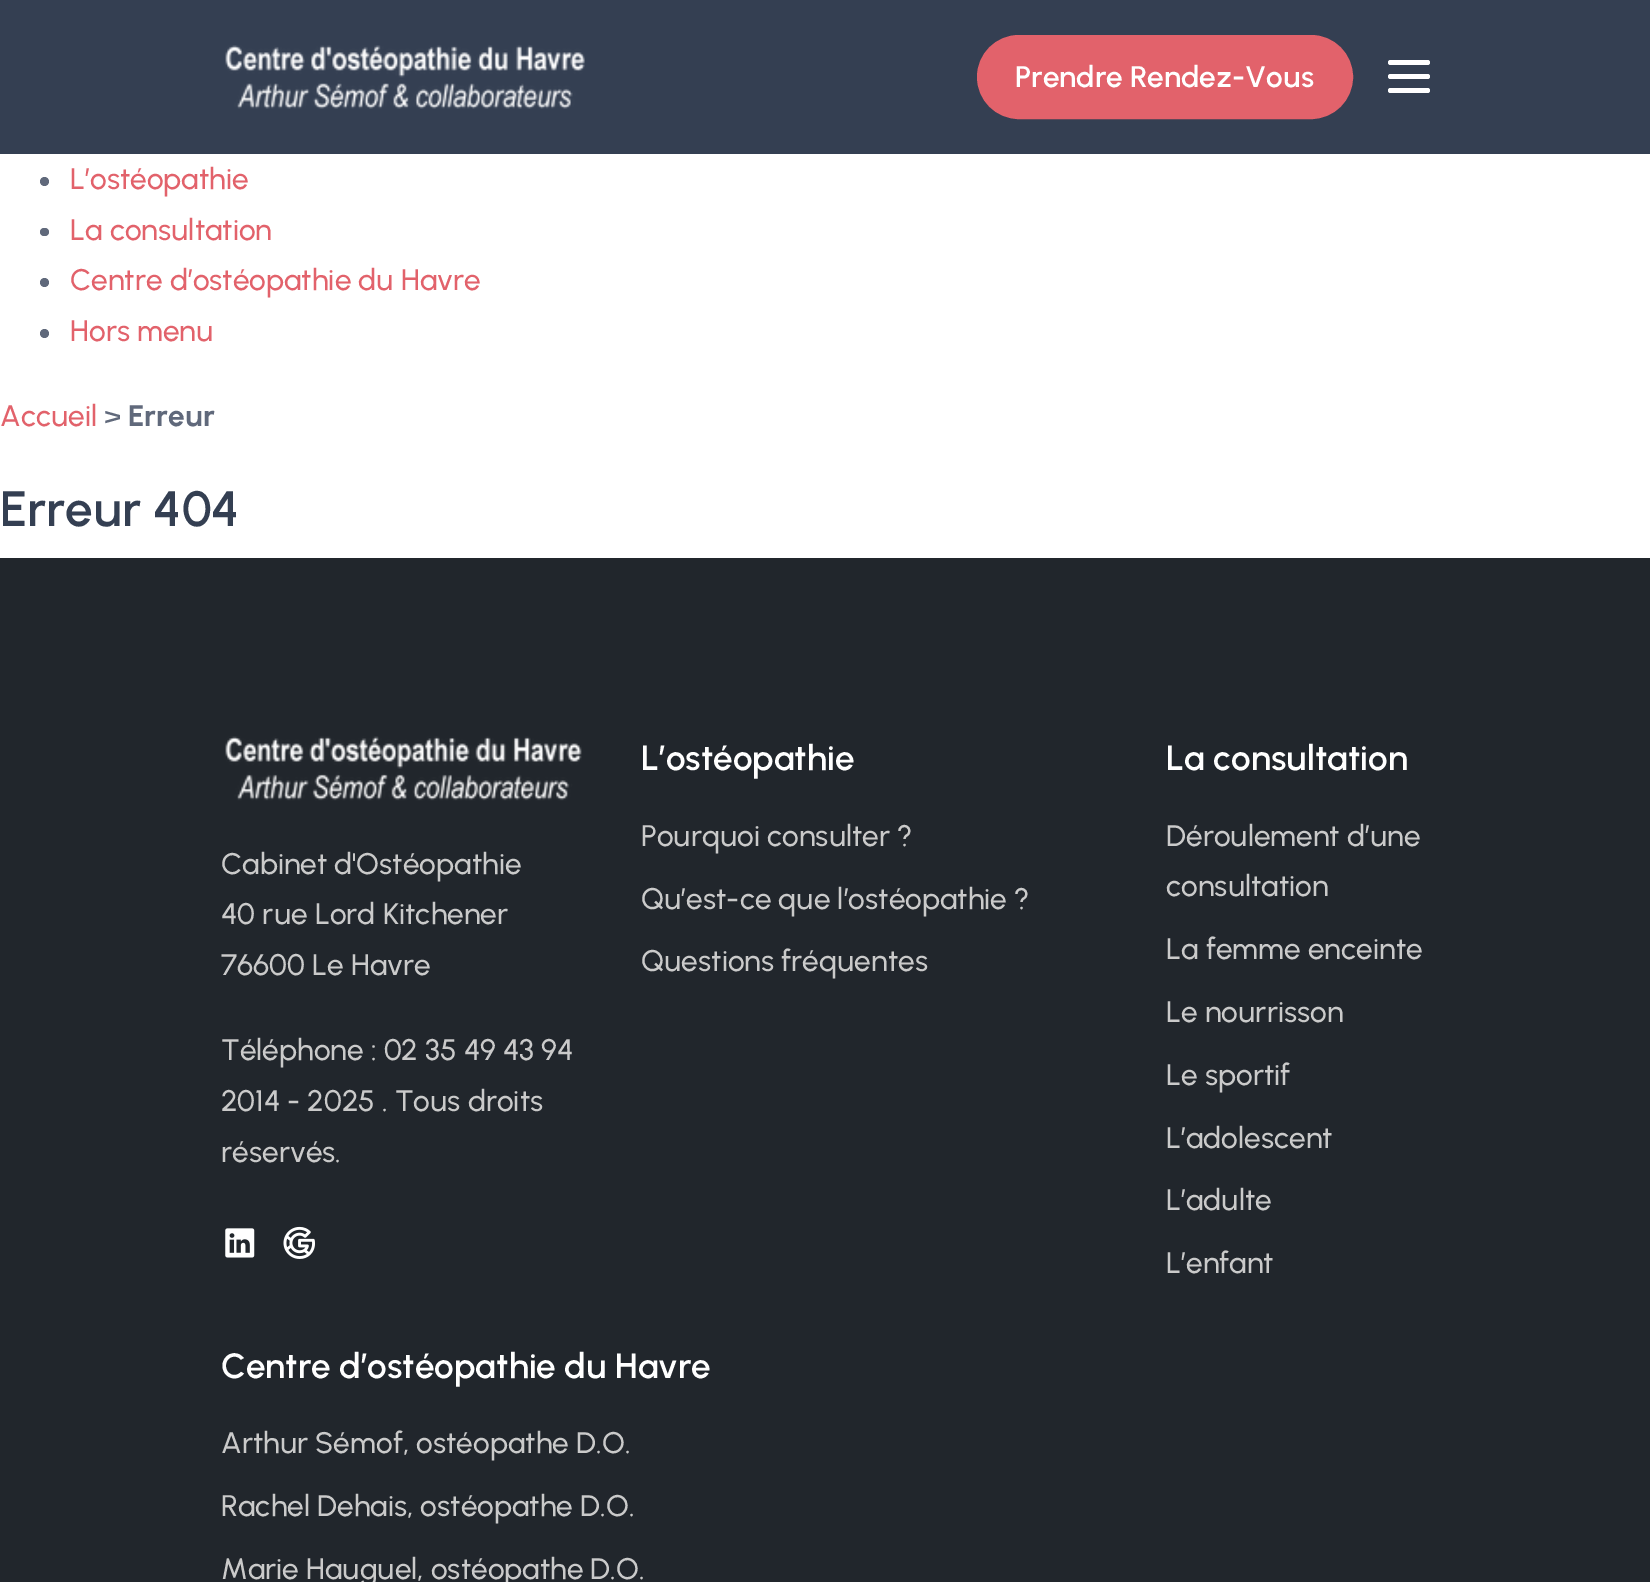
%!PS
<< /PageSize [1650 1582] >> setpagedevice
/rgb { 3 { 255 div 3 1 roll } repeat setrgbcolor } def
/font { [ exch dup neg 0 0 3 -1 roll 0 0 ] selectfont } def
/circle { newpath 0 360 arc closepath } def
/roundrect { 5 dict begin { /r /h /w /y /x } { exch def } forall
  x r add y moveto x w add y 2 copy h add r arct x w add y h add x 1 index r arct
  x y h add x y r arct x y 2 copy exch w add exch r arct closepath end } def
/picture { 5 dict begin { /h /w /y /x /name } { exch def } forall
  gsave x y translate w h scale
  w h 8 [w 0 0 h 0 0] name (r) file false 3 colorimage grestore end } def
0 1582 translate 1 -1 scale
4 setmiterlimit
255 255 255 rgb
0 0 1650 1582 rectfill
52 63 82 rgb
0 0 1650 154 rectfill
(img/1.rgb) 225 45 360 64 picture
226 98 107 rgb
979 37 372 80 40 roundrect gsave fill grestore
4 setlinewidth
stroke
255 255 255 rgb
1388 60 42 5 2.5 roundrect fill
1388 74 42 5 2.5 roundrect fill
1388 88 42 5 2.5 roundrect fill
96 105 123 rgb
44.5 181.5 4.5 circle fill
40 228 9 8 4 roundrect fill
44.5 282.5 4.5 circle fill
44.5 333.5 4.5 circle fill
33 38 44 rgb
0 558 1650 1024 rectfill
(img/2.rgb) 225 736 357 65 picture
(img/3.rgb) 225 1228 30 30 picture
(img/4.rgb) 283 1226 32 33 picture
/Urbanist-SemiBold 29.75 font
255 255 255 rgb
1015 87 moveto (Prendre Rendez-Vous) show
/Urbanist-Medium 29.75 font
226 98 107 rgb
[
  [(L’ostéopathie) 70 189]
  [(La consultation) 70 240]
  [(Centre d’ostéopathie du Havre) 70 290]
  [(Hors menu) 70 341]
  [(Accueil) 0 426]
] { aload pop moveto show } forall
96 105 123 rgb
104 426 moveto (>) show
/Urbanist-Bold 29.75 font
128 426 moveto (Erreur) show
/Urbanist-SemiBold 49.5 font
52 63 82 rgb
0 526 moveto (Erreur 404) show
/Urbanist-Medium 29.75 font
202 202 202 rgb
[
  [(Cabinet d'Ostéopathie) 221 874]
  [(40 rue Lord Kitchener) 221 924]
  [(76600 Le Havre) 221 975]
  [(Téléphone : 02 35 49 43 94) 221 1060]
  [(2014 - 2025 . Tous droits) 221 1111]
  [(réservés.) 221 1162]
] { aload pop moveto show } forall
/Urbanist-SemiBold 35 font
255 255 255 rgb
641 770 moveto (L’ostéopathie) show
/Urbanist-Medium 29.75 font
202 202 202 rgb
[
  [(Pourquoi consulter ?) 641 846]
  [(Qu’est-ce que l’ostéopathie ?) 641 909]
  [(Questions fréquentes) 641 971]
] { aload pop moveto show } forall
/Urbanist-SemiBold 35 font
255 255 255 rgb
1166 770 moveto (La consultation) show
/Urbanist-Medium 29.75 font
202 202 202 rgb
[
  [(Déroulement d’une) 1166 846]
  [(consultation) 1166 896]
  [(La femme enceinte) 1166 959]
  [(Le nourrisson) 1166 1022]
  [(Le sportif) 1166 1085]
  [(L’adolescent) 1166 1148]
  [(L’adulte) 1166 1210]
  [(L’enfant) 1166 1273]
] { aload pop moveto show } forall
/Urbanist-SemiBold 35 font
255 255 255 rgb
221 1378 moveto (Centre d’ostéopathie du Havre) show
/Urbanist-Medium 29.75 font
202 202 202 rgb
[
  [(Arthur Sémof, ostéopathe D.O.) 221 1453]
  [(Rachel Dehais, ostéopathe D.O.) 221 1516]
  [(Marie Hauguel, ostéopathe D.O.) 221 1579]
] { aload pop moveto show } forall
showpage
